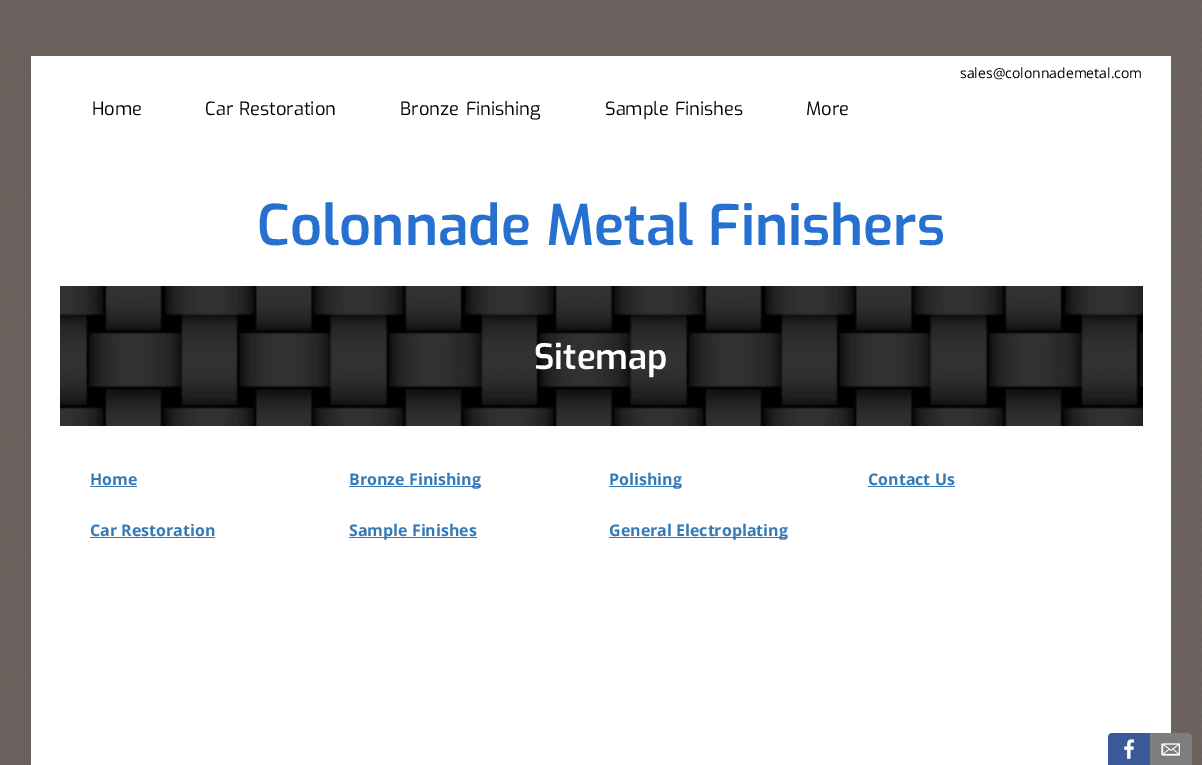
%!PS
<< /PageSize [1202 765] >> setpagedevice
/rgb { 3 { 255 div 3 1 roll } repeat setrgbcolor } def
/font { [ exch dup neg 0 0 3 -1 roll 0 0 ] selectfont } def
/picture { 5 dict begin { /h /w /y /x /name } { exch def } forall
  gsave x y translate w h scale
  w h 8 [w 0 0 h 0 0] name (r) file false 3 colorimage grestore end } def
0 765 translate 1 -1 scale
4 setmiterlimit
255 255 255 rgb
0 0 1202 765 rectfill
(img/1.rgb) 0 0 1202 765 picture
31 56 1140 709 rectfill
(img/2.rgb) 60 286 1083 140 picture
[
  [90 486 47 1 51 122 183]
  [349 486 132 1 51 122 183]
  [609 486 72 1 51 122 183]
  [868 486 87 1 51 122 183]
  [90 537 125 1 51 122 183]
  [349 537 128 1 51 122 183]
  [609 537 178 1 51 122 183]
] { aload pop rgb rectfill } forall
59 89 152 rgb
1112 733 moveto 1150 733 lineto 1150 765 lineto 1108 765 lineto 1108 737 lineto 1108 735 1110 733 1112 733 curveto closepath fill
(img/3.rgb) 1124 739 10 20 picture
125 125 125 rgb
1150 733 moveto 1188 733 lineto 1190 733 1192 735 1192 737 curveto 1192 765 lineto 1150 765 lineto closepath fill
(img/4.rgb) 1161 743 19 13 picture
/OpenSans-Regular 14 font
0 0 0 rgb
960 78 moveto (sales@colonnademetal.com) show
/Exo-Regular 18.25 font
92 115 moveto (Home) show
205 115 moveto 1 0 32 (Car Restoration) widthshow
400 115 moveto 2 0 32 (Bronze Finishing) widthshow
605 115 moveto 1 0 32 (Sample Finishes) widthshow
806 115 moveto (More) show
/Exo-SemiBold 56 font
38 112 208 rgb
257 245 moveto (Colonnade Metal Finishers) show
/Exo-SemiBold 35 font
255 255 255 rgb
534 369 moveto (Sitemap) show
/OpenSans-Bold 16 font
51 122 183 rgb
[
  [(Home) 90 485]
  [(Bronze Finishing) 349 485]
  [(Polishing) 609 485]
  [(Contact Us) 868 485]
  [(Car Restoration) 90 536]
  [(Sample Finishes) 349 536]
  [(General Electroplating) 609 536]
] { aload pop moveto show } forall
showpage
